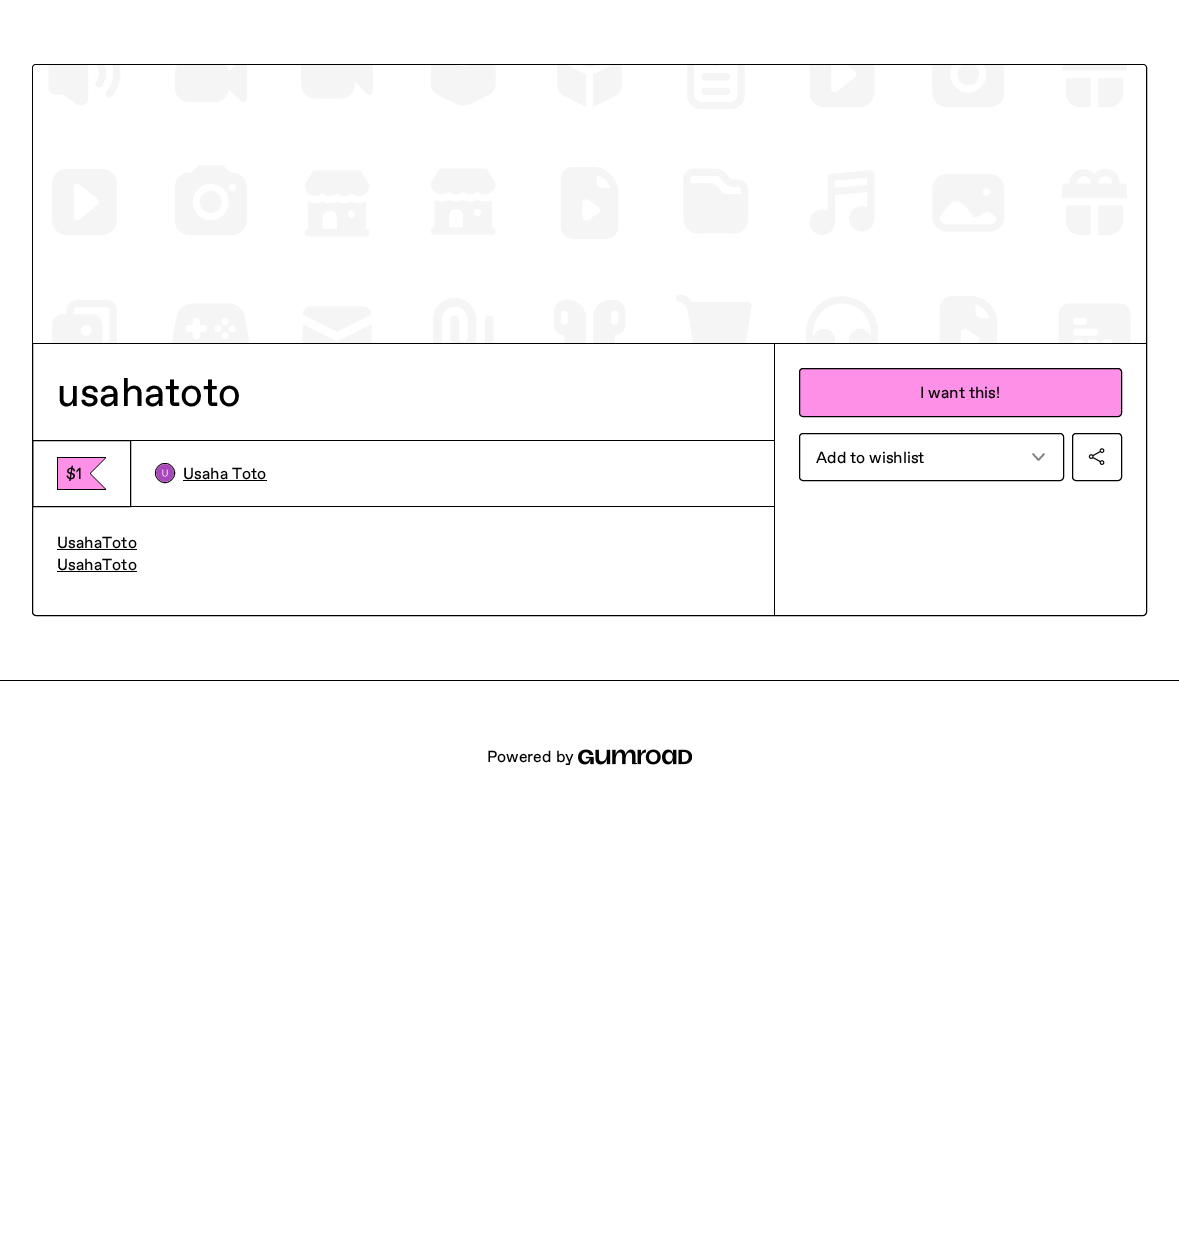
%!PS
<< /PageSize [1179 1233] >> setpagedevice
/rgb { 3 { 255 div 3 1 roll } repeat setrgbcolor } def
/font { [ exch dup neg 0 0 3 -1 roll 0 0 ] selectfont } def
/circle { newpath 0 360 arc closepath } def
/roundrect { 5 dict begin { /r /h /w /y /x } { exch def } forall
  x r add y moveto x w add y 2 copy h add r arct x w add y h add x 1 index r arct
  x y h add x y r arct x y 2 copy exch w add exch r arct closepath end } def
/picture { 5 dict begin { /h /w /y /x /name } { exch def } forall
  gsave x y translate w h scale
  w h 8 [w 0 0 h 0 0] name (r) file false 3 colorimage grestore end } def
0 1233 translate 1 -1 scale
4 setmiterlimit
255 255 255 rgb
0 0 1179 1233 rectfill
0 0 0 rgb
0 680 1179 1 rectfill
32.5 64.5 1114 551 3.5 roundrect stroke
(img/1.rgb) 33 65 1113 278 picture
[
  [33 343 1113 1 0 0 0]
  [774 344 1 271 0 0 0]
  [131 440 643 1 0 0 0]
] { aload pop rgb rectfill } forall
32.5 440.5 98 66 rectstroke
[
  [57 457 49 1 0 0 0]
  [57 489 49 1 0 0 0]
  [57 457 1 33 0 0 0]
  [58 458 32 31 255 144 232]
] { aload pop rgb rectfill } forall
0 0 0 rgb
90 458 moveto 106 458 lineto 91 473 lineto closepath 106 489 moveto 90 489 lineto 91 474 lineto closepath fill
90 472 1 3 rectfill
255 144 232 rgb
89 458 moveto 105 458 lineto 90 473 lineto closepath 105 489 moveto 89 489 lineto 90 474 lineto closepath fill
0 0 0 rgb
165 473 9.5 circle stroke
(img/2.rgb) 156 464 18 18 picture
[
  [183 480 84 1 0 0 0]
  [131 506 643 1 0 0 0]
  [57 549 80 1 0 0 0]
  [57 571 80 1 0 0 0]
] { aload pop rgb rectfill } forall
255 144 232 rgb
799.5 368.5 322 48 3.5 roundrect gsave fill grestore
0 0 0 rgb
stroke
799.5 433.5 264 47 3.5 roundrect stroke
128 128 128 rgb
1.6 setlinewidth
1 setlinecap
1 setlinejoin
1044 454 moveto 1038.5 460 lineto 1033 454 lineto stroke
0 0 0 rgb
1 setlinewidth
0 setlinecap
0 setlinejoin
1072.5 433.5 49 47 3.5 roundrect stroke
(img/3.rgb) 1088 448 17 17 picture
(img/4.rgb) 578 749 114 16 picture
633 763 4 1 rectfill
/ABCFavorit-Regular 40 font
57 406 moveto (usahatoto) show
/ABCFavorit-Regular 16 font
[
  [($1) 66 479]
  [(Usaha Toto) 183 479]
  [(UsahaToto) 57 548]
  [(UsahaToto) 57 570]
  [(I want this!) 920 398]
  [(Add to wishlist) 816 463]
  [(Powered by) 487 762]
] { aload pop moveto show } forall
showpage
